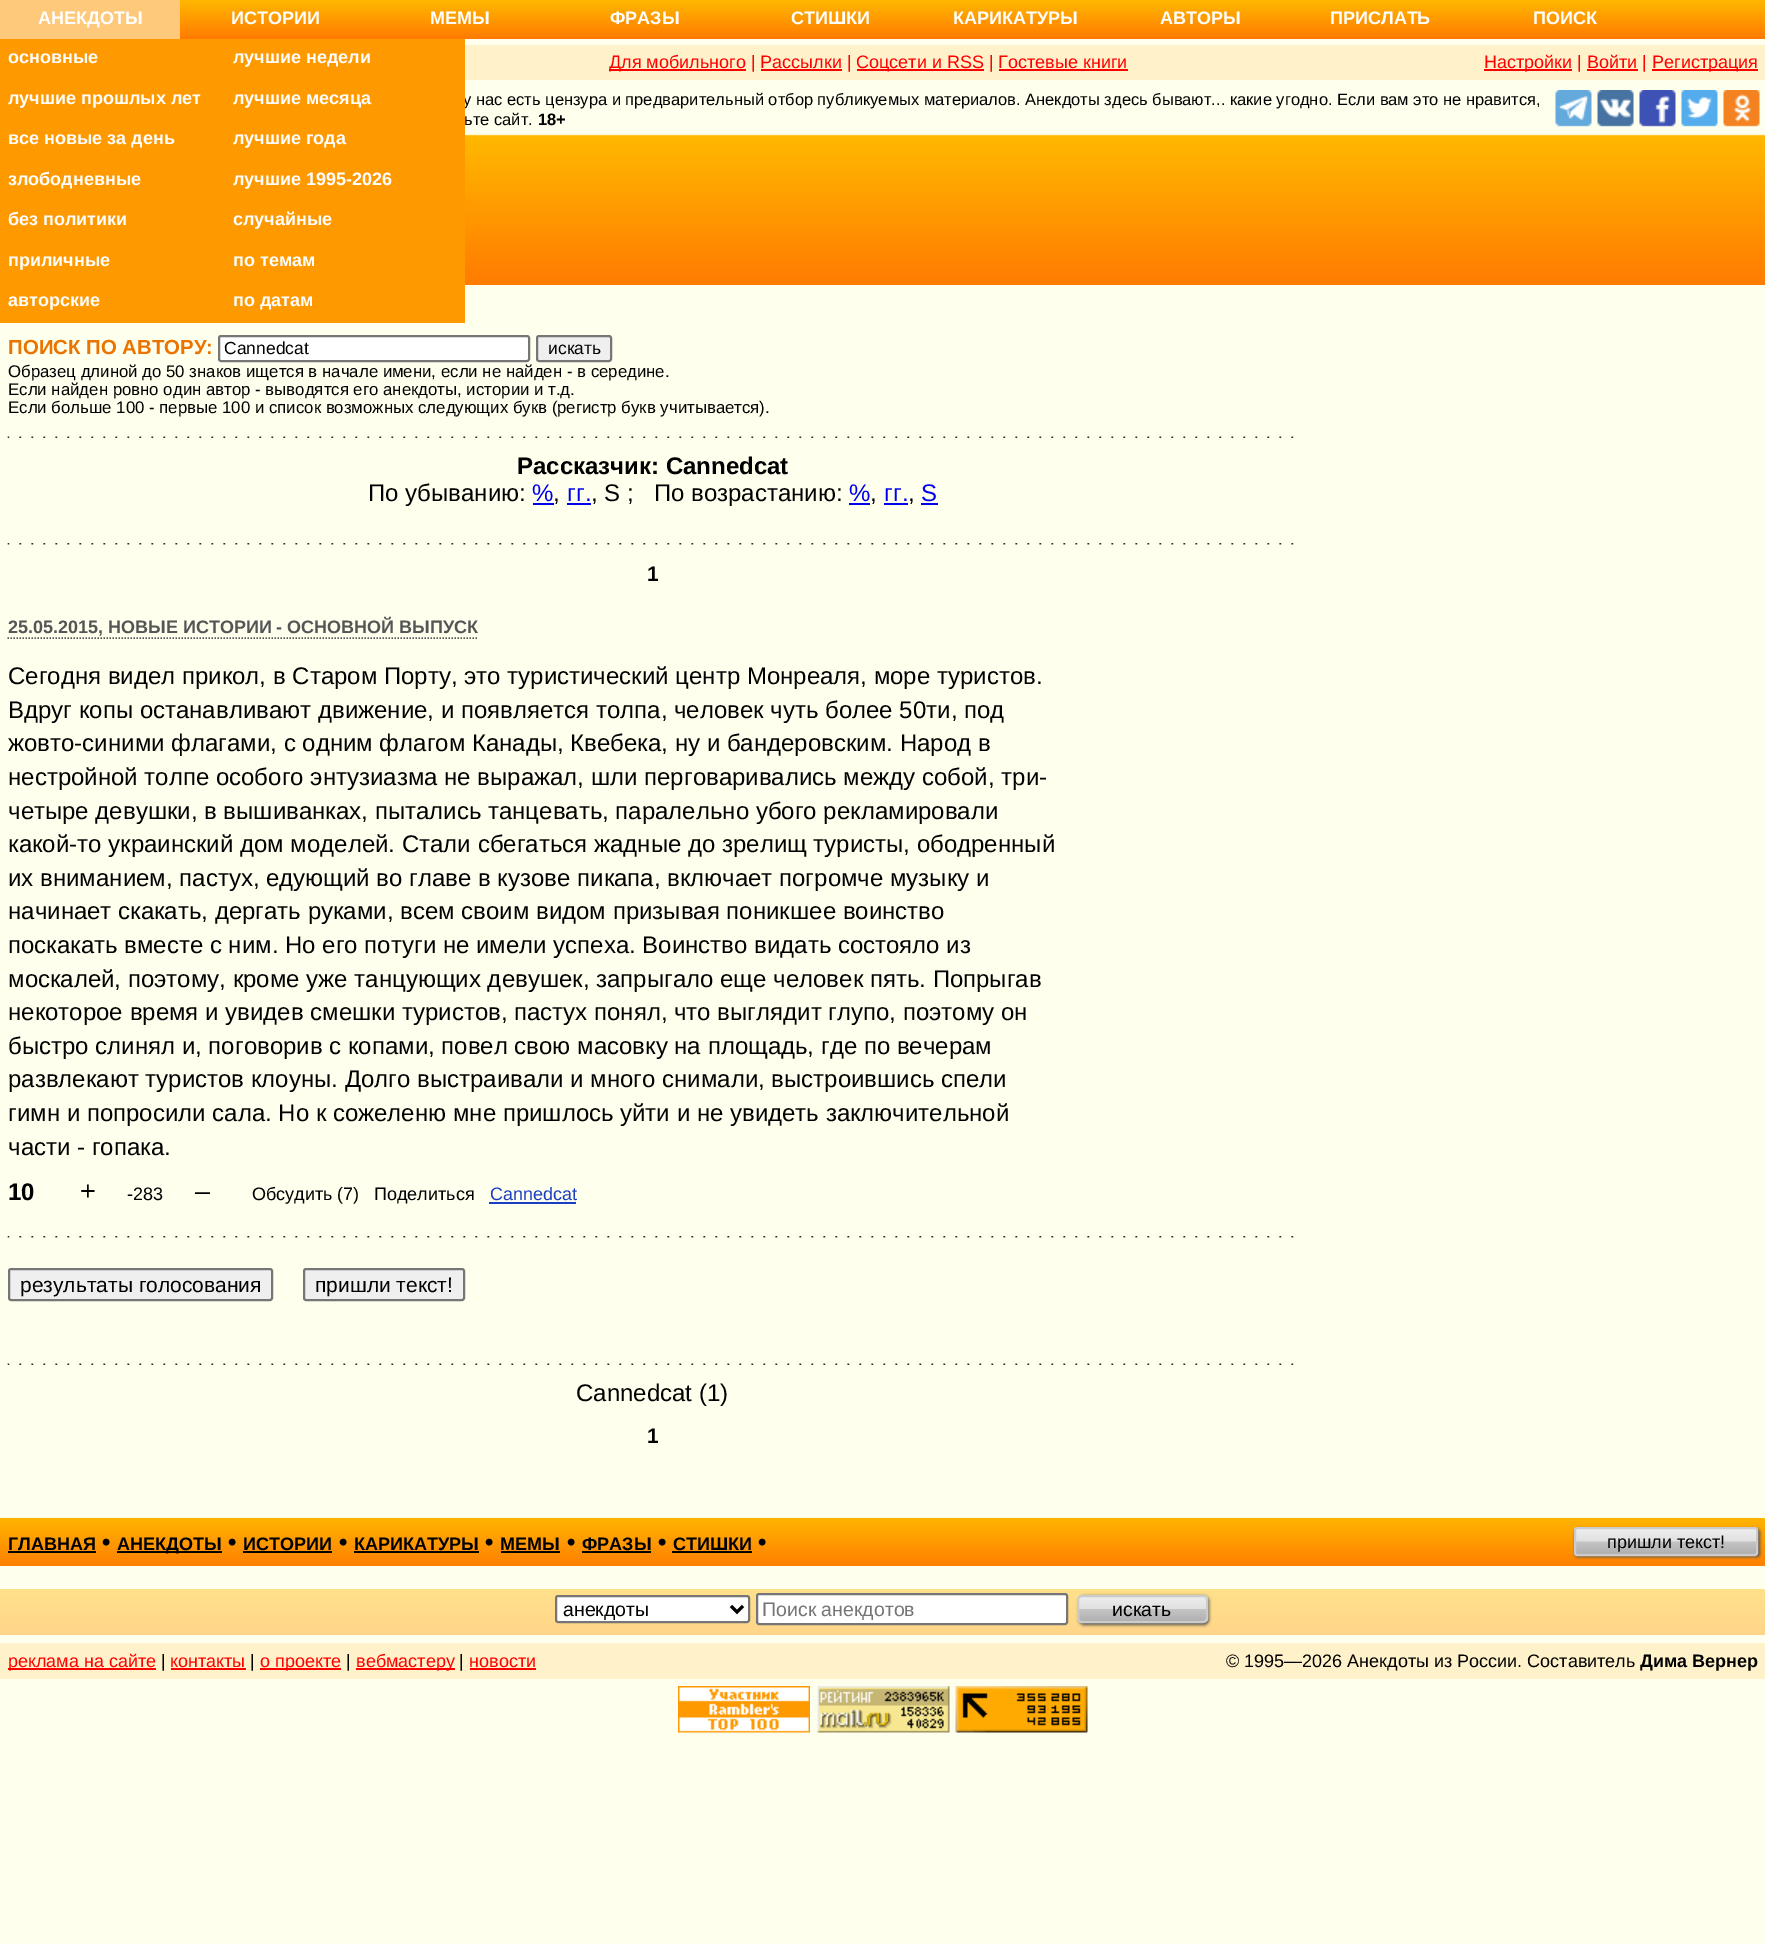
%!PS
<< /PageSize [1765 1944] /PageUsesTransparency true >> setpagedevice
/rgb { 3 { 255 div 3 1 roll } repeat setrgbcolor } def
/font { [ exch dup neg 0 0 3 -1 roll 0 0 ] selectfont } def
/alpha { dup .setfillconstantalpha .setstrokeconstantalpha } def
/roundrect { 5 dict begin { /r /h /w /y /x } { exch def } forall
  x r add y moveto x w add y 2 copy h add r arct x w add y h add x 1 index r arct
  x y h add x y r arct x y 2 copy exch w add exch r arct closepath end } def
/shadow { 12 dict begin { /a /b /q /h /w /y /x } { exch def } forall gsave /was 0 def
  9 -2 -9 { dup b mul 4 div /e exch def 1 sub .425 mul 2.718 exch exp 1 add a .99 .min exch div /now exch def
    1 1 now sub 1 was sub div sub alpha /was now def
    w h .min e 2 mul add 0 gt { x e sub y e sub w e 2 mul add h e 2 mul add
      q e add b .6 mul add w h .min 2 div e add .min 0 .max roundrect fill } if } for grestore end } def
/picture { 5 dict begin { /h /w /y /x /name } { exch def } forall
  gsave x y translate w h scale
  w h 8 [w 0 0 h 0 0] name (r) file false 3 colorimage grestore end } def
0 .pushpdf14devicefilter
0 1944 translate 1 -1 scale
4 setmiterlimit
255 255 238 rgb
0 0 1765 1944 rectfill
gsave 180 0 moveto 1765 0 lineto 1765 39 lineto 180 39 lineto closepath clip newpath
<< /ShadingType 2 /ColorSpace /DeviceRGB /Coords [883 0 883 39] /Extend [true true] /Function << /FunctionType 2 /Domain [0 1] /C0 [1 0.722 0] /C1 [1 0.478 0] /N 1 >> >> shfill grestore
[
  [0 0 180 39 255 201 124]
  [0 39 225 284 255 153 0]
  [465 45 1300 35 255 242 202]
  [609 69 137 2 255 0 0]
  [857 69 127 2 255 0 0]
  [1484 69 88 2 255 0 0]
  [1652 69 106 2 255 0 0]
  [1587 69 51 2 255 0 0]
  [761 69 81 2 255 0 0]
  [999 69 129 2 255 0 0]
] { aload pop rgb rectfill } forall
(img/1.rgb) 465 134 1300 151 picture
(img/2.rgb) 1555 90 37 37 picture
(img/3.rgb) 1597 90 37 37 picture
(img/4.rgb) 1639 90 37 37 picture
(img/5.rgb) 1681 90 37 37 picture
(img/6.rgb) 1723 90 37 37 picture
(img/7.rgb) 7 436 1287 2 picture
255 255 255 rgb
219 336 310 25 2 roundrect gsave fill grestore
118 118 118 rgb
2 setlinewidth
stroke
239 239 239 rgb
537 336 74 25 2 roundrect gsave fill grestore
118 118 118 rgb
stroke
[
  [533 503 21 2 0 0 238]
  [567 503 24 2 0 0 238]
  [849 503 21 2 0 0 238]
  [884 503 24 2 0 0 238]
  [921 503 17 2 0 0 238]
] { aload pop rgb rectfill } forall
(img/8.rgb) 7 543 1287 2 picture
(img/8.rgb) 7 1236 1287 2 picture
85 85 85 rgb
1.5 setlinewidth
[1.5 1.5] 0 setdash
7.5 638 moveto 477 638 lineto stroke
26 61 193 rgb
489 1202 87 2 rectfill
239 239 239 rgb
9 1269 263 31 2 roundrect gsave fill grestore
118 118 118 rgb
2 setlinewidth
[] 0 setdash
stroke
239 239 239 rgb
304 1269 160 31 2 roundrect gsave fill grestore
118 118 118 rgb
stroke
(img/7.rgb) 7 1363 1287 2 picture
gsave 0 1518 moveto 1765 1518 lineto 1765 1566 lineto 0 1566 lineto closepath clip newpath
<< /ShadingType 2 /ColorSpace /DeviceRGB /Coords [883 1518 883 1566] /Extend [true true] /Function << /FunctionType 2 /Domain [0 1] /C0 [1 0.71 0] /C1 [1 0.498 0] /N 1 >> >> shfill grestore
[
  [8 1551 88 2 0 0 0]
  [117 1551 105 2 0 0 0]
  [243 1551 89 2 0 0 0]
  [354 1551 125 2 0 0 0]
  [501 1551 59 2 0 0 0]
  [582 1551 69 2 0 0 0]
  [672 1551 80 2 0 0 0]
] { aload pop rgb rectfill } forall
85 85 85 rgb
1575 1529 185 28 3 1.5 1 shadow
gsave
1574 1527 184 29 3 roundrect clip newpath
gsave 1574 1529 moveto 1758 1529 lineto 1758 1554 lineto 1574 1554 lineto closepath clip newpath
<< /ShadingType 2 /ColorSpace /DeviceRGB /Coords [1666 1529 1666 1554] /Extend [true true] /Function << /FunctionType 3 /Domain [0 1] /Functions [<< /FunctionType 2 /Domain [0 1] /C0 [0.933 0.933 0.933] /C1 [0.882 0.882 0.882] /N 1 >> << /FunctionType 2 /Domain [0 1] /C0 [0.882 0.882 0.882] /C1 [0.769 0.769 0.769] /N 1 >> << /FunctionType 2 /Domain [0 1] /C0 [0.769 0.769 0.769] /C1 [0.69 0.69 0.69] /N 1 >>] /Bounds [0.49 0.51] /Encode [0 1 0 1 0 1] >> >> shfill grestore
grestore
204 204 204 rgb
1575 1528 182 27 2 roundrect stroke
gsave 0 1589 moveto 1765 1589 lineto 1765 1635 lineto 0 1635 lineto closepath clip newpath
<< /ShadingType 2 /ColorSpace /DeviceRGB /Coords [883 1589 883 1635] /Extend [true true] /Function << /FunctionType 2 /Domain [0 1] /C0 [1 0.882 0.541] /C1 [1 0.835 0.541] /N 1 >> >> shfill grestore
255 255 255 rgb
556 1596 193 26 2 roundrect gsave fill grestore
118 118 118 rgb
stroke
0 0 0 rgb
3 setlinewidth
731 1606 moveto 737 1612 lineto 743 1606 lineto stroke
255 255 255 rgb
757 1594 310 30 2 roundrect gsave fill grestore
118 118 118 rgb
2 setlinewidth
stroke
85 85 85 rgb
1079 1596 130 29 5 1.5 1 shadow
gsave
1077 1595 131 28 5 roundrect clip newpath
gsave 1077 1596 moveto 1208 1596 lineto 1208 1622 lineto 1077 1622 lineto closepath clip newpath
<< /ShadingType 2 /ColorSpace /DeviceRGB /Coords [1142 1596 1142 1622] /Extend [true true] /Function << /FunctionType 3 /Domain [0 1] /Functions [<< /FunctionType 2 /Domain [0 1] /C0 [0.933 0.933 0.933] /C1 [0.882 0.882 0.882] /N 1 >> << /FunctionType 2 /Domain [0 1] /C0 [0.882 0.882 0.882] /C1 [0.769 0.769 0.769] /N 1 >> << /FunctionType 2 /Domain [0 1] /C0 [0.769 0.769 0.769] /C1 [0.69 0.69 0.69] /N 1 >>] /Bounds [0.49 0.51] /Encode [0 1 0 1 0 1] >> >> shfill grestore
grestore
204 204 204 rgb
1078 1596 129 26 4 roundrect stroke
[
  [0 1643 1765 36 255 242 202]
  [8 1668 148 2 255 0 0]
  [171 1668 75 2 255 0 0]
  [260 1668 81 2 255 0 0]
  [356 1668 99 2 255 0 0]
  [470 1668 66 2 255 0 0]
] { aload pop rgb rectfill } forall
(img/9.rgb) 678 1686 132 47 picture
(img/10.rgb) 817 1686 133 47 picture
(img/11.rgb) 955 1686 133 47 picture
/LiberationSans-Bold 18 font
255 255 255 rgb
[
  [(АНЕКДОТЫ) 38 24]
  [(основные) 8 63]
  [(лучшие прошлых лет) 8 104]
  [(все новые за день) 8 144]
  [(злободневные) 8 185]
  [(без политики) 8 225]
  [(приличные) 8 266]
  [(авторские) 8 306]
  [(ИСТОРИИ) 231 24]
  [(МЕМЫ) 430 24]
  [(ФРАЗЫ) 610 24]
  [(СТИШКИ) 791 24]
  [(КАРИКАТУРЫ) 953 24]
  [(АВТОРЫ) 1160 24]
  [(ПРИСЛАТЬ) 1330 24]
  [(ПОИСК) 1533 24]
] { aload pop moveto show } forall
/LiberationSans-Regular 18 font
255 0 0 rgb
[
  [(Для мобильного | Рассылки |) 609 68]
  [(Соцсети и RSS | Гостевые книги) 856 68]
  [(Настройки | Войти |) 1484 68]
  [(Регистрация) 1652 68]
] { aload pop moveto show } forall
/LiberationSans-Regular 16.5 font
0 0 0 rgb
463 105 moveto (у нас есть цензура и предварительный отбор публикуемых материалов. Анекдоты здесь бывают... какие угодно. Если вам это не нравится,) show
255 153 0 rgb
225 39 240 284 rectfill
/LiberationSans-Bold 18 font
255 255 255 rgb
[
  [(по датам) 233 306]
  [(по темам) 233 266]
  [(случайные) 233 225]
  [(лучшие 1995-2026) 233 185]
  [(лучшие года) 233 144]
  [(лучшие месяца) 233 104]
  [(лучшие недели) 233 63]
] { aload pop moveto show } forall
/LiberationSans-Regular 16.5 font
0 0 0 rgb
464 125 moveto (ьте сайт.) show
/LiberationSans-Bold 16.5 font
538 125 moveto (18+) show
/LiberationSans-Bold 20.4 font
235 116 0 rgb
8 354 moveto (ПОИСК ПО АВТОРУ:) show
/LiberationSans-Regular 17.5 font
0 0 0 rgb
224 354 moveto (Cannedcat) show
548 354 moveto (искать) show
/LiberationSans-Regular 16.8 font
[
  [(Образец длиной до 50 знаков ищется в начале имени, если не найден - в середине.) 8 377]
  [(Если найден ровно один автор - выводятся его анекдоты, истории и т.д.) 8 395]
  [(Если больше 100 - первые 100 и список возможных следующих букв \(регистр букв учитывается\).) 8 413]
] { aload pop moveto show } forall
/LiberationSans-Bold 24 font
517 474 moveto (Рассказчик: Cannedcat) show
/LiberationSans-Regular 24 font
368 501 moveto (По убыванию:) show
0 0 238 rgb
532 501 moveto (%) show
0 0 0 rgb
553 501 moveto (,) show
0 0 238 rgb
567 501 moveto (гг.) show
0 0 0 rgb
591 501 moveto (, S ;   По возрастанию:) show
0 0 238 rgb
849 501 moveto (%) show
0 0 0 rgb
870 501 moveto (,) show
0 0 238 rgb
884 501 moveto (гг.) show
0 0 0 rgb
908 501 moveto (,) show
0 0 238 rgb
921 501 moveto (S) show
/LiberationSans-Bold 21 font
0 0 0 rgb
647 581 moveto (1) show
/LiberationSans-Bold 18 font
85 85 85 rgb
8 633 moveto (25.05.2015, НОВЫЕ ИСТОРИИ - ОСНОВНОЙ ВЫПУСК) show
/LiberationSans-Regular 24 font
0 0 0 rgb
[
  [(Сегодня видел прикол, в Старом Порту, это туристический центр Монреаля, море туристов.) 8 684]
  [(Вдруг копы останавливают движение, и появляется толпа, человек чуть более 50ти, под) 8 718]
  [(жовто-синими флагами, с одним флагом Канады, Квебека, ну и бандеровским. Народ в) 8 751]
  [(нестройной толпе особого энтузиазма не выражал, шли перговаривались между собой, три-) 8 785]
  [(четыре девушки, в вышиванках, пытались танцевать, паралельно убого рекламировали) 8 819]
  [(какой-то украинский дом моделей. Стали сбегаться жадные до зрелищ туристы, ободренный) 8 852]
  [(их вниманием, пастух, едующий во главе в кузове пикапа, включает погромче музыку и) 8 886]
  [(начинает скакать, дергать руками, всем своим видом призывая поникшее воинство) 8 919]
  [(поскакать вместе с ним. Но его потуги не имели успеха. Воинство видать состояло из) 8 953]
  [(москалей, поэтому, кроме уже танцующих девушек, запрыгало еще человек пять. Попрыгав) 8 987]
  [(некоторое время и увидев смешки туристов, пастух понял, что выглядит глупо, поэтому он) 8 1020]
  [(быстро слинял и, поговорив с копами, повел свою масовку на площадь, где по вечерам) 8 1054]
  [(развлекают туристов клоуны. Долго выстраивали и много снимали, выстроившись спели) 8 1087]
  [(гимн и попросили сала. Но к сожеленю мне пришлось уйти и не увидеть заключительной) 8 1121]
  [(части - гопака.) 8 1155]
] { aload pop moveto show } forall
/LiberationSans-Bold 24 font
8 1200 moveto (10) show
/LiberationSans-Regular 27 font
80 1200 moveto (+) show
/LiberationSans-Regular 18 font
127 1200 moveto (-283) show
/LiberationSans-Regular 27 font
195 1200 moveto (–) show
/LiberationSans-Regular 18 font
252 1200 moveto (Обсудить \(7\)) show
374 1200 moveto (Поделиться) show
26 61 193 rgb
490 1200 moveto (Cannedcat) show
/LiberationSans-Regular 21 font
0 0 0 rgb
20 1292 moveto (результаты голосования) show
315 1292 moveto (пришли текст!) show
/LiberationSans-Regular 24 font
576 1401 moveto (Cannedcat \(1\)) show
/LiberationSans-Bold 21 font
647 1443 moveto (1) show
/LiberationSans-Bold 18 font
8 1550 moveto (ГЛАВНАЯ) show
/LiberationSans-Bold 24 font
102 1550 moveto (•) show
/LiberationSans-Bold 18 font
117 1550 moveto (АНЕКДОТЫ) show
/LiberationSans-Bold 24 font
228 1550 moveto (•) show
/LiberationSans-Bold 18 font
243 1550 moveto (ИСТОРИИ) show
/LiberationSans-Bold 24 font
339 1550 moveto (•) show
/LiberationSans-Bold 18 font
354 1550 moveto (КАРИКАТУРЫ) show
/LiberationSans-Bold 24 font
485 1550 moveto (•) show
/LiberationSans-Bold 18 font
500 1550 moveto (МЕМЫ) show
/LiberationSans-Bold 24 font
567 1550 moveto (•) show
/LiberationSans-Bold 18 font
582 1550 moveto (ФРАЗЫ) show
/LiberationSans-Bold 24 font
658 1550 moveto (•) show
/LiberationSans-Bold 18 font
673 1550 moveto (СТИШКИ) show
/LiberationSans-Bold 24 font
758 1550 moveto (•) show
/LiberationSans-Regular 18 font
1607 1548 moveto (пришли текст!) show
/LiberationSans-Regular 19.5 font
563 1616 moveto (анекдоты) show
117 117 117 rgb
762 1616 moveto (Поиск анекдотов) show
0 0 0 rgb
1112 1616 moveto (искать) show
/LiberationSans-Regular 18 font
255 0 0 rgb
8 1667 moveto (реклама на сайте) show
0 0 0 rgb
161 1667 moveto (|) show
255 0 0 rgb
170 1667 moveto (контакты) show
0 0 0 rgb
250 1667 moveto (|) show
255 0 0 rgb
260 1667 moveto (о проекте) show
0 0 0 rgb
346 1667 moveto (|) show
255 0 0 rgb
356 1667 moveto (вебмастеру) show
0 0 0 rgb
459 1667 moveto (|) show
255 0 0 rgb
469 1667 moveto (новости) show
0 0 0 rgb
1226 1667 moveto (© 1995—2026 Анекдоты из России. Составитель) show
/LiberationSans-Bold 18 font
1640 1667 moveto (Дима Вернер) show
.poppdf14devicefilter showpage
